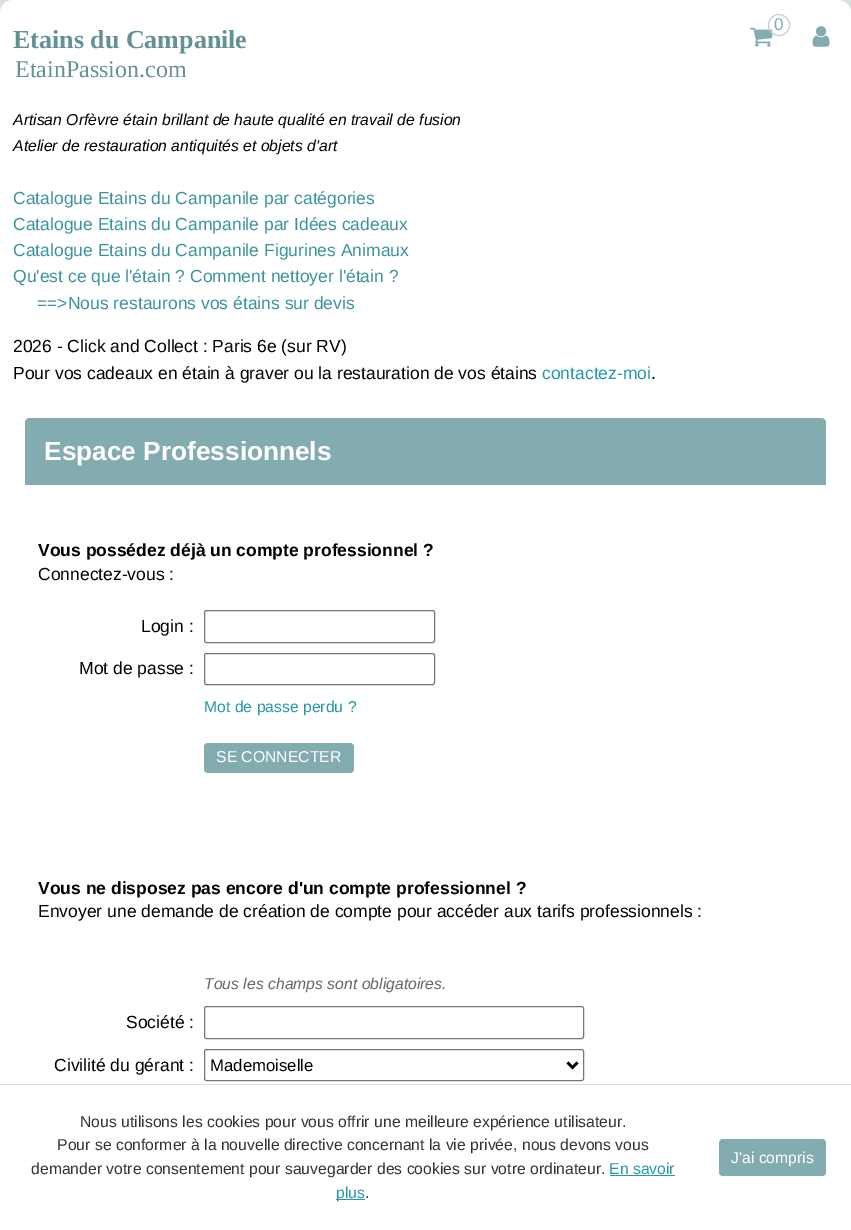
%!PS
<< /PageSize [851 1230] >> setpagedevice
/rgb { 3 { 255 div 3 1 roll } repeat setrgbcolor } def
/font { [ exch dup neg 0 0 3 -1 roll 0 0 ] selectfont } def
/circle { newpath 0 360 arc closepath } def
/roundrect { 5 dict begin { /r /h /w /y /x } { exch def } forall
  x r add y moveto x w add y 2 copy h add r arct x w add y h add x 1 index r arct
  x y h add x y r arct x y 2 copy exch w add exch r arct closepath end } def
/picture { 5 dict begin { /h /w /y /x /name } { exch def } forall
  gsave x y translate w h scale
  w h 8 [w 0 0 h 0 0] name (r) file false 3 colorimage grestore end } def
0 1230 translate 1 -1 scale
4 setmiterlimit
217 222 223 rgb
0 0 851 1230 rectfill
255 255 255 rgb
0 0 851 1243 13 roundrect fill
(img/1.rgb) 750 27 23 20 picture
204 204 204 rgb
779 25 10.5 circle stroke
(img/2.rgb) 812 26 18 21 picture
131 172 177 rgb
30 418 moveto 821 418 lineto 824 418 826 420 826 423 curveto 826 485 lineto 25 485 lineto 25 423 lineto 25 420 27 418 30 418 curveto closepath fill
118 118 118 rgb
204.5 610.5 230 32 2 roundrect stroke
204.5 653.5 230 31 2 roundrect stroke
131 172 177 rgb
204 743 150 30 4 roundrect fill
118 118 118 rgb
204.5 1006.5 379 32 2 roundrect stroke
204.5 1049.5 379 31 2 roundrect stroke
0 0 0 rgb
2.5 setlinewidth
567.5 1062.5 moveto 572.5 1067.5 lineto 577.5 1062.5 lineto stroke
[
  [0 1084 851 1 221 221 221]
  [610 1175 65 1 37 152 166]
  [336 1199 29 1 37 152 166]
] { aload pop rgb rectfill } forall
131 172 177 rgb
719 1139 107 37 4 roundrect fill
/LiberationSans-Regular 17 font
774 30 moveto (0) show
/LiberationSerif-Bold 26 font
100 145 150 rgb
13 48 moveto (Etains du Campanile) show
/LiberationSerif-Regular 24 font
15 77 moveto (EtainPassion.com) show
/LiberationSans-Italic 15.75 font
0 0 0 rgb
13 125 moveto (Artisan Orfèvre étain brillant de haute qualité en travail de fusion) show
13 151 moveto (Atelier de restauration antiquités et objets d'art) show
/LiberationSans-Regular 17.5 font
58 147 158 rgb
[
  [(Catalogue Etains du Campanile par catégories) 13 204]
  [(Catalogue Etains du Campanile par Idées cadeaux) 13 230]
  [(Catalogue Etains du Campanile Figurines Animaux) 13 256]
  [(Qu'est ce que l'étain ? Comment nettoyer l'étain ?) 13 282]
  [(==>Nous restaurons vos étains sur devis) 37 309]
] { aload pop moveto show } forall
0 0 0 rgb
13 352 moveto (2026 - Click and Collect : Paris 6e \(sur RV\)) show
13 379 moveto (Pour vos cadeaux en étain à graver ou la restauration de vos étains) show
37 152 166 rgb
542 379 moveto (contactez-moi) show
0 0 0 rgb
651 379 moveto (.) show
/LiberationSans-Bold 26.25 font
255 255 255 rgb
44 460 moveto (Espace Professionnels) show
/LiberationSans-Bold 17.5 font
0 0 0 rgb
38 556 moveto (Vous possédez déjà un compte professionnel ?) show
/LiberationSans-Regular 17.5 font
[
  [(Connectez-vous :) 38 580]
  [(Login :) 141 632]
  [(Mot de passe :) 79 674]
] { aload pop moveto show } forall
/LiberationSans-Regular 15.75 font
37 152 166 rgb
204 712 moveto (Mot de passe perdu ?) show
255 255 255 rgb
216 762 moveto (SE CONNECTER) show
/LiberationSans-Bold 17.5 font
0 0 0 rgb
38 894 moveto (Vous ne disposez pas encore d'un compte professionnel ?) show
/LiberationSans-Regular 17.5 font
38 917 moveto (Envoyer une demande de création de compte pour accéder aux tarifs professionnels :) show
/LiberationSans-Italic 15.75 font
102 102 102 rgb
204 989 moveto (Tous les champs sont obligatoires.) show
/LiberationSans-Regular 17.5 font
0 0 0 rgb
126 1028 moveto (Société :) show
54 1071 moveto (Civilité du gérant :) show
/LiberationSans-Regular 16.75 font
210 1071 moveto (Mademoiselle) show
/LiberationSans-Regular 15.75 font
51 51 51 rgb
[
  [(Nous utilisons les cookies pour vous offrir une meilleure expérience utilisateur.) 80 1127]
  [(Pour se conformer à la nouvelle directive concernant la vie privée, nous devons vous) 57 1150]
  [(demander votre consentement pour sauvegarder des cookies sur votre ordinateur.) 31 1174]
] { aload pop moveto show } forall
37 152 166 rgb
609 1174 moveto (En savoir) show
336 1198 moveto (plus) show
51 51 51 rgb
365 1198 moveto (.) show
255 255 255 rgb
731 1163 moveto (J'ai compris) show
showpage
